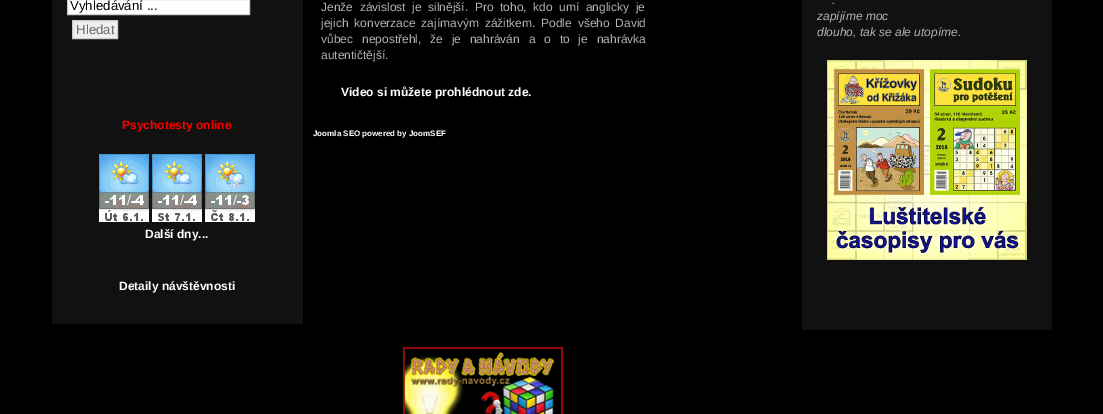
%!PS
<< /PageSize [1103 414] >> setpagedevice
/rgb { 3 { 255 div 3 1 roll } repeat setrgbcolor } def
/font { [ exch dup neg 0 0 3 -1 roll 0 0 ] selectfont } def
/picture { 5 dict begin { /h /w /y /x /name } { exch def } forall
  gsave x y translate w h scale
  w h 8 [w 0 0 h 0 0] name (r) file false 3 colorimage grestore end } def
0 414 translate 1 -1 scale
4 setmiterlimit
0 0 0 rgb
0 0 1103 414 rectfill
17 17 17 rgb
52 0 251 324 rectfill
255 255 255 rgb
67.5 -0.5 moveto 249.5 -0.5 lineto 249.5 14.5 lineto 67.5 14.5 lineto closepath gsave fill grestore
204 204 204 rgb
stroke
239 239 239 rgb
72.5 20.5 moveto 117.5 20.5 lineto 117.5 38.5 lineto 72.5 38.5 lineto closepath gsave fill grestore
204 204 204 rgb
stroke
(img/1.rgb) 99 154 50 68 picture
(img/2.rgb) 152 154 50 68 picture
(img/3.rgb) 205 154 50 68 picture
17 17 17 rgb
802 0 250 330 rectfill
(img/4.rgb) 827 60 200 200 picture
(img/5.rgb) 403 347 160 67 picture
/LiberationSans-Regular 13.25 font
0 0 0 rgb
70 10 moveto (Vyhledávání ...) show
108 108 108 rgb
76 34 moveto (Hledat) show
/LiberationSans-Bold 12 font
255 0 0 rgb
122 129 moveto (Psychotesty online) show
255 255 255 rgb
145 238 moveto (Další dny...) show
119 290 moveto (Detaily návštěvnosti) show
/LiberationSans-Regular 12 font
178 179 178 rgb
321 11 moveto 3.25 0 32 (Jenže závislost je silnější. Pro toho, kdo umí anglicky je) widthshow
321 27 moveto 2.5 0 32 (jejich konverzace zajímavým zážitkem. Podle všeho David) widthshow
321 43 moveto 5.5 0 32 (vůbec nepostřehl, že je nahráván a o to je nahrávka) widthshow
321 59 moveto (autentičtější.) show
/LiberationSans-Bold 12 font
255 255 255 rgb
341 96 moveto (Video si můžete prohlédnout zde.) show
/LiberationSans-Bold 8 font
313 136 moveto (Joomla SEO powered by JoomSEF) show
/LiberationSans-Italic 12 font
178 179 178 rgb
[
  [(.) 832 4]
  [(zapíjíme moc) 817 20]
  [(dlouho, tak se ale utopíme.) 817 36]
] { aload pop moveto show } forall
showpage
